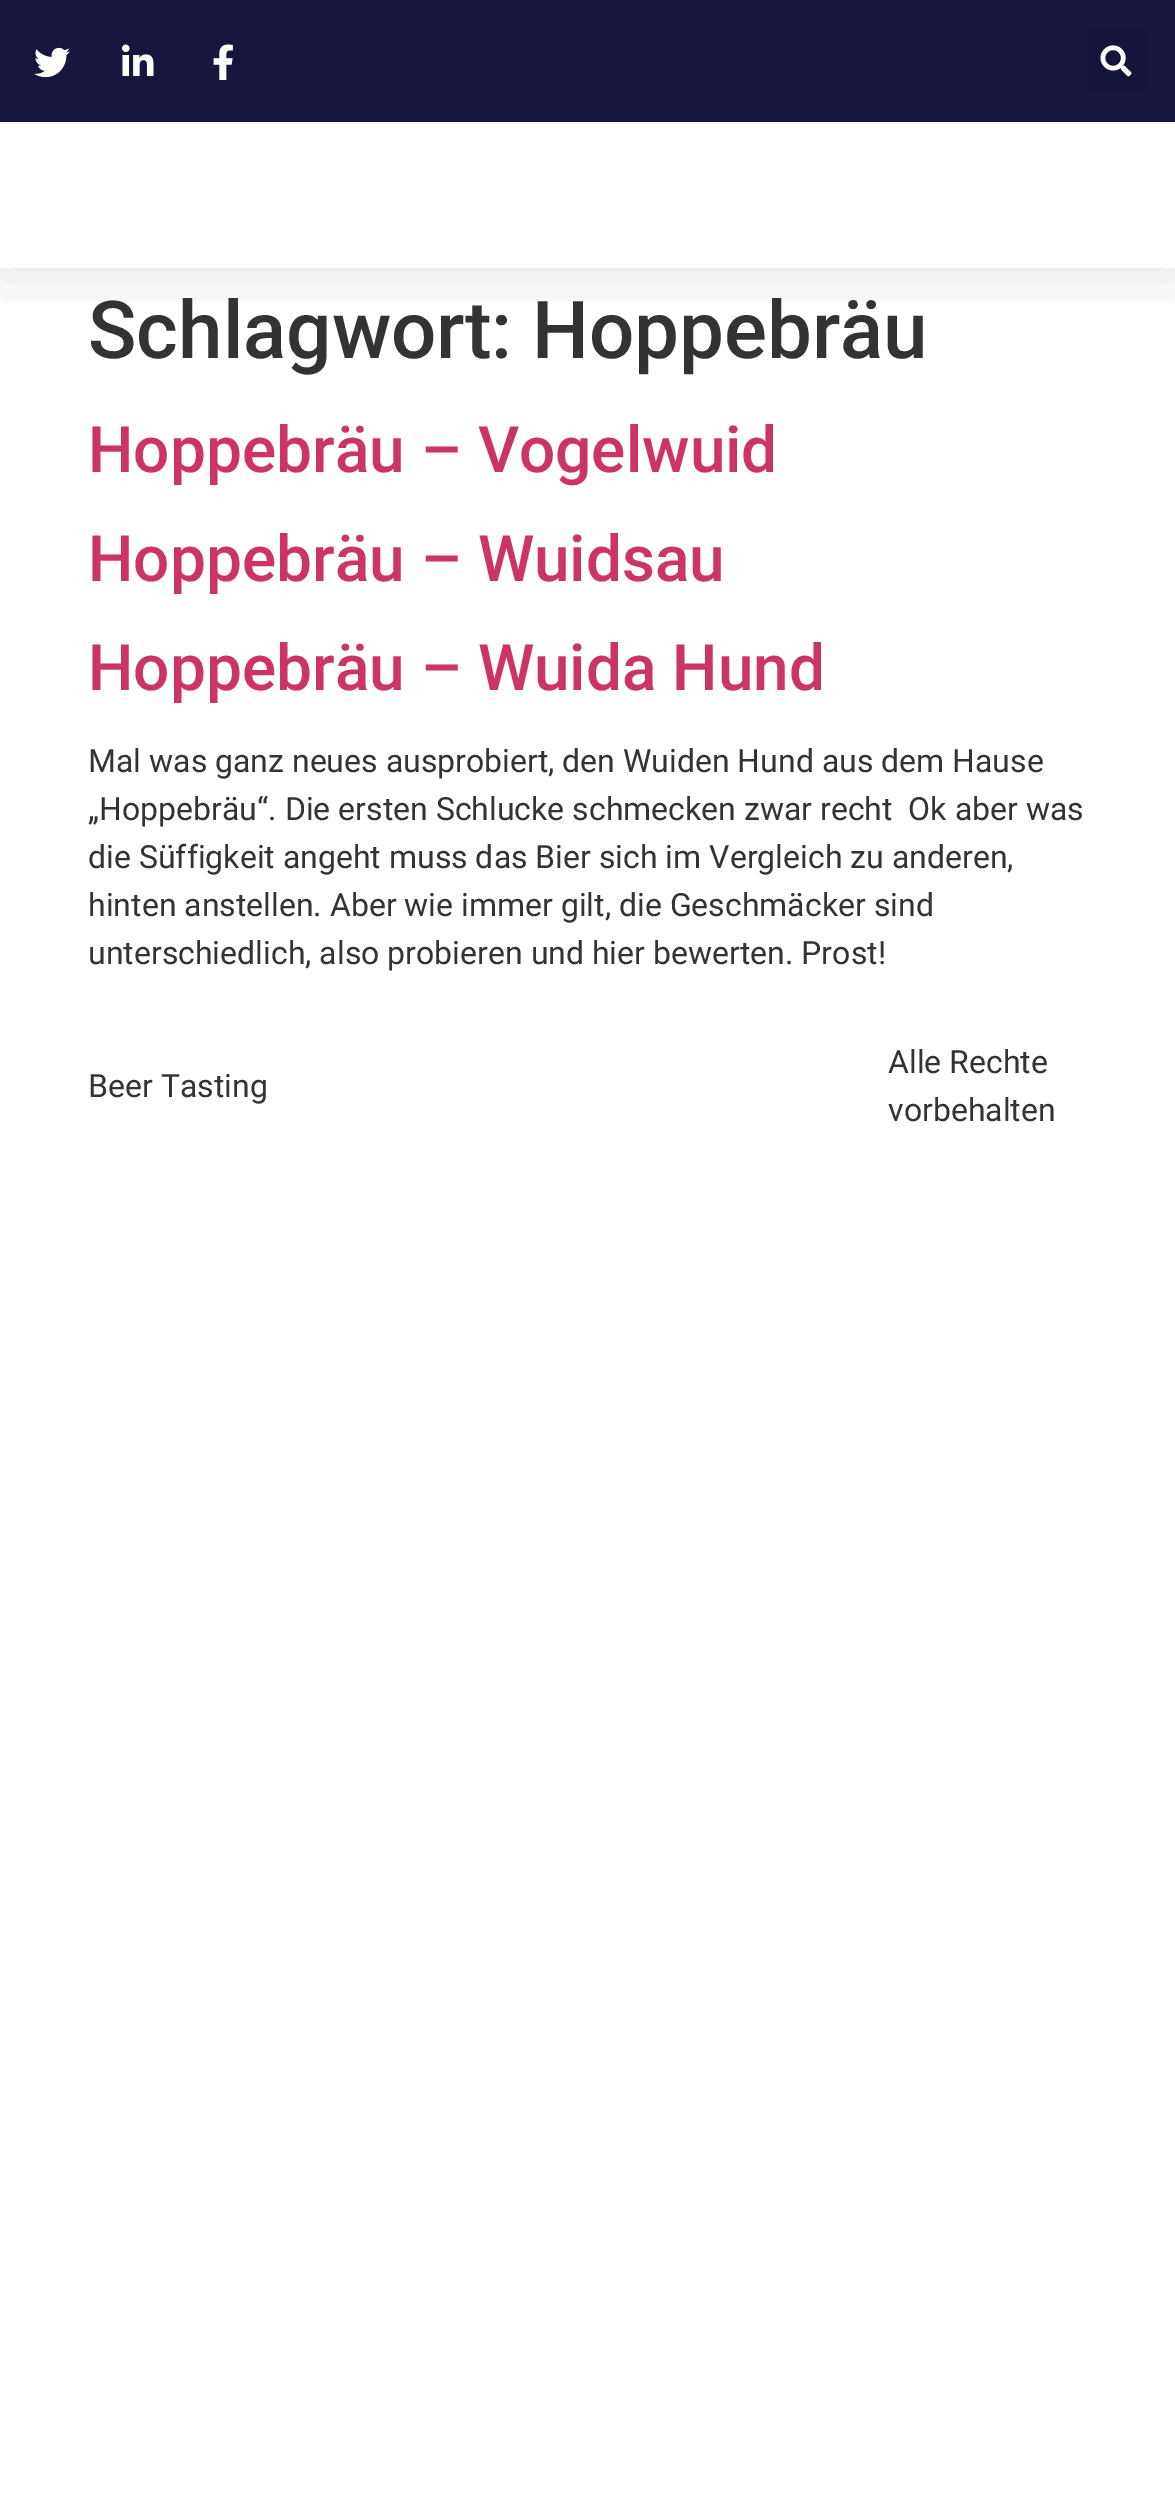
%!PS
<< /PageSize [1175 2500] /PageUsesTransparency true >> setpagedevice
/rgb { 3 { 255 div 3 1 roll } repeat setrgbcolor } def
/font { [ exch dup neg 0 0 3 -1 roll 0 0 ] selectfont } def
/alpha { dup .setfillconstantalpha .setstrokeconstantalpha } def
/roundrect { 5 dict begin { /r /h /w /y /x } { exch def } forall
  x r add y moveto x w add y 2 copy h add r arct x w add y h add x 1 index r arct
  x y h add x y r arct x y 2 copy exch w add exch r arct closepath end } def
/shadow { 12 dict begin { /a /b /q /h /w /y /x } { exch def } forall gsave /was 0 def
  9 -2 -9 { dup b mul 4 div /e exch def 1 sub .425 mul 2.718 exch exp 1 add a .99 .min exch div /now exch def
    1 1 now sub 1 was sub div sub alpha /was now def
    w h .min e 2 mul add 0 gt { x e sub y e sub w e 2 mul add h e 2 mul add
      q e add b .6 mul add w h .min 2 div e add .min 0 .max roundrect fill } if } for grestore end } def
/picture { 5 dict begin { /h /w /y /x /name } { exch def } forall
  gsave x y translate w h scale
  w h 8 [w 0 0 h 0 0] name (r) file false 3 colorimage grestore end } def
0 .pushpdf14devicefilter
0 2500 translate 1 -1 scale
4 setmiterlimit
255 255 255 rgb
0 0 1175 2500 rectfill
gsave
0 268 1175 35 rectclip
0 0 0 rgb
0 10 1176 268 0 30 0.1 shadow
grestore
22 22 63 rgb
0 0 1175 122 rectfill
(img/1.rgb) 34 47 36 31 picture
(img/2.rgb) 122 44 32 32 picture
(img/3.rgb) 213 44 20 36 picture
21 21 60 rgb
1084 30 62 62 6 roundrect fill
(img/4.rgb) 1100 45 32 32 picture
/Roboto-Medium 80 font
51 51 51 rgb
88 358 moveto (Schlagwort: Hoppebräu) show
/Roboto-Medium 64 font
204 51 102 rgb
[
  [(Hoppebräu – Vogelwuid) 88 472]
  [(Hoppebräu – Wuidsau) 88 581]
  [(Hoppebräu – Wuida Hund) 88 690]
] { aload pop moveto show } forall
/Roboto-Regular 32 font
51 51 51 rgb
[
  [(Mal was ganz neues ausprobiert, den Wuiden Hund aus dem Hause) 88 772]
  [(„Hoppebräu“. Die ersten Schlucke schmecken zwar recht  Ok aber was) 88 820]
  [(die Süffigkeit angeht muss das Bier sich im Vergleich zu anderen,) 88 868]
  [(hinten anstellen. Aber wie immer gilt, die Geschmäcker sind) 88 916]
  [(unterschiedlich, also probieren und hier bewerten. Prost!) 88 964]
  [(Beer Tasting) 88 1097]
  [(Alle Rechte) 888 1073]
  [(vorbehalten) 888 1121]
] { aload pop moveto show } forall
.poppdf14devicefilter showpage
